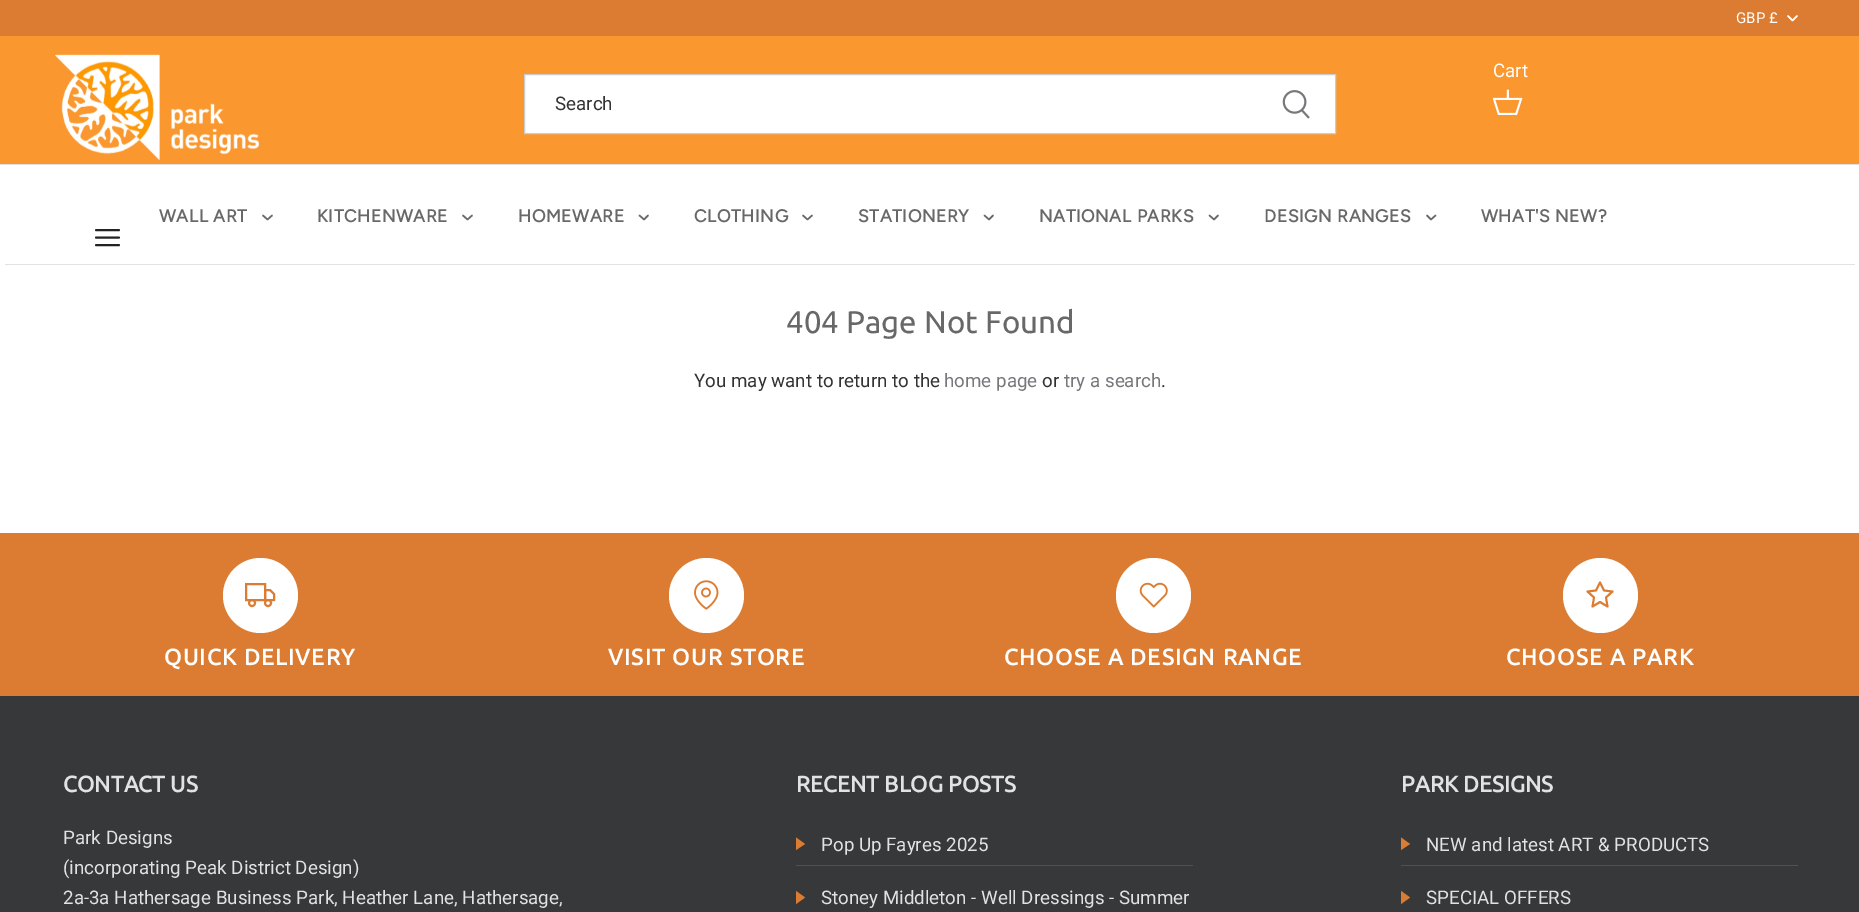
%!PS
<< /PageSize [1859 912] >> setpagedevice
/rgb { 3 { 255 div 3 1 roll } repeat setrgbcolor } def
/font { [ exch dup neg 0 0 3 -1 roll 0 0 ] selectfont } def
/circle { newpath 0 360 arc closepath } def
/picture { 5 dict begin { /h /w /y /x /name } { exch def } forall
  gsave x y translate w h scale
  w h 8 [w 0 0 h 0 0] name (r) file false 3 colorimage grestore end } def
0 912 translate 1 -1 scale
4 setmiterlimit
255 255 255 rgb
0 0 1859 912 rectfill
219 124 50 rgb
0 0 1859 36 rectfill
255 255 255 rgb
1.5 setlinewidth
1 setlinecap
1 setlinejoin
1788 16 moveto 1792.5 20.5 lineto 1797 16 lineto stroke
250 151 46 rgb
0 36 1859 128 rectfill
223 223 223 rgb
0 164 1859 1 rectfill
(img/1.rgb) 55 54 205 106 picture
(img/2.rgb) 1493 89 30 26 picture
255 255 255 rgb
524.5 74.5 moveto 1335.5 74.5 lineto 1335.5 133.5 lineto 524.5 133.5 lineto closepath gsave fill grestore
204 204 204 rgb
1 setlinewidth
0 setlinecap
0 setlinejoin
stroke
(img/3.rgb) 1282 90 28 29 picture
226 226 226 rgb
5 264 1850 1 rectfill
104 104 104 rgb
1.5 setlinewidth
1 setlinecap
1 setlinejoin
263 215.5 moveto 267.5 219.5 lineto 272 215.5 lineto stroke
463 215.5 moveto 467.5 219.5 lineto 472 215.5 lineto stroke
639.5 215.5 moveto 644 219.5 lineto 648 215.5 lineto stroke
803 215.5 moveto 807.5 219.5 lineto 812 215.5 lineto stroke
984.5 215.5 moveto 989 219.5 lineto 993 215.5 lineto stroke
1209.5 215.5 moveto 1214 219.5 lineto 1218 215.5 lineto stroke
1427 215.5 moveto 1431 219.5 lineto 1435.5 215.5 lineto stroke
35 35 35 rgb
1.9 setlinewidth
96 237.5 moveto 119 237.5 lineto 96 230 moveto 119 230 lineto 96 245 moveto 119 245 lineto stroke
54 56 57 rgb
0 696 1859 216 rectfill
219 124 50 rgb
0 533 1859 163 rectfill
255 255 255 rgb
260.5 595.5 37.5 circle fill
219 124 50 rgb
2 setlinewidth
0 setlinecap
0 setlinejoin
246 584 19 16 rectstroke
1.9 setlinewidth
1 setlinecap
1 setlinejoin
265 590 moveto 270 590 lineto 274 594 lineto 274 600 lineto 265 600 lineto closepath stroke
0 setlinecap
0 setlinejoin
252 603 3 circle stroke
268 603 3 circle stroke
255 255 255 rgb
706.5 595.5 37.5 circle fill
(img/4.rgb) 694 580 25 30 picture
1153.5 595.5 37.5 circle fill
(img/5.rgb) 1139 582 29 26 picture
1600.5 595.5 37.5 circle fill
219 124 50 rgb
1 setlinecap
1 setlinejoin
1600 582.5 moveto 1604 590.5 lineto 1612.5 591.5 lineto 1606 597.5 lineto 1607.5 606.5 lineto 1600 602 lineto 1592.5 606.5 lineto 1594 597.5 lineto 1587.5 591.5 lineto 1596 590.5 lineto closepath stroke
80 81 82 rgb
796 865 397 1 rectfill
219 124 50 rgb
796 850 moveto 796 837.5 lineto 805 844 lineto closepath fill
796 904 moveto 796 891 lineto 805 897.5 lineto closepath fill
80 81 82 rgb
1401 865 397 1 rectfill
219 124 50 rgb
1401 850 moveto 1401 837.5 lineto 1410 844 lineto closepath fill
1401 904 moveto 1401 891 lineto 1410 897.5 lineto closepath fill
/Roboto-Regular 15 font
255 255 255 rgb
1736 23 moveto (GBP £) show
/Roboto-Regular 18.75 font
1493 77 moveto (Cart) show
51 51 51 rgb
555 110 moveto (Search) show
/Figtree-Bold 17.5 font
104 104 104 rgb
159 222 moveto 0.6 0 (WALL ART) ashow
317 222 moveto 0.6 0 (KITCHENWARE) ashow
518 222 moveto 0.6 0 (HOMEWARE) ashow
694 222 moveto 0.6 0 (CLOTHING) ashow
858 222 moveto 0.6 0 (STATIONERY) ashow
1039 222 moveto 0.6 0 (NATIONAL PARKS) ashow
1264 222 moveto 0.6 0 (DESIGN RANGES) ashow
1481 222 moveto 0.6 0 (WHAT'S NEW?) ashow
/Ubuntu-Regular 31.25 font
786 333 moveto (404 Page Not Found) show
/Roboto-Regular 18.75 font
51 51 51 rgb
694 387 moveto (You may want to return to the) show
119 120 124 rgb
944 387 moveto (home page) show
51 51 51 rgb
1042 387 moveto (or) show
119 120 124 rgb
1064 387 moveto (try a search) show
51 51 51 rgb
1161 387 moveto (.) show
/Ubuntu-Bold 22.5 font
255 255 255 rgb
164 665 moveto 1.25 0 (QUICK DELIVERY) ashow
608 665 moveto 1.25 0 (VISIT OUR STORE) ashow
1004 665 moveto 1.25 0 (CHOOSE A DESIGN RANGE) ashow
1506 665 moveto 1.25 0 (CHOOSE A PARK) ashow
226 226 226 rgb
63 792 moveto (CONTACT US) show
/Roboto-Regular 18.75 font
[
  [(Park Designs) 63 844]
  [(\(incorporating Peak District Design\)) 63 874]
  [(2a-3a Hathersage Business Park, Heather Lane, Hathersage,) 63 904]
] { aload pop moveto show } forall
/Ubuntu-Bold 22.5 font
796 792 moveto (RECENT BLOG POSTS) show
/Roboto-Regular 18.75 font
821 851 moveto (Pop Up Fayres 2025) show
821 904 moveto (Stoney Middleton - Well Dressings - Summer) show
/Ubuntu-Bold 22.5 font
1401 792 moveto (PARK DESIGNS) show
/Roboto-Regular 18.75 font
1426 851 moveto (NEW and latest ART & PRODUCTS) show
1426 904 moveto (SPECIAL OFFERS) show
showpage
